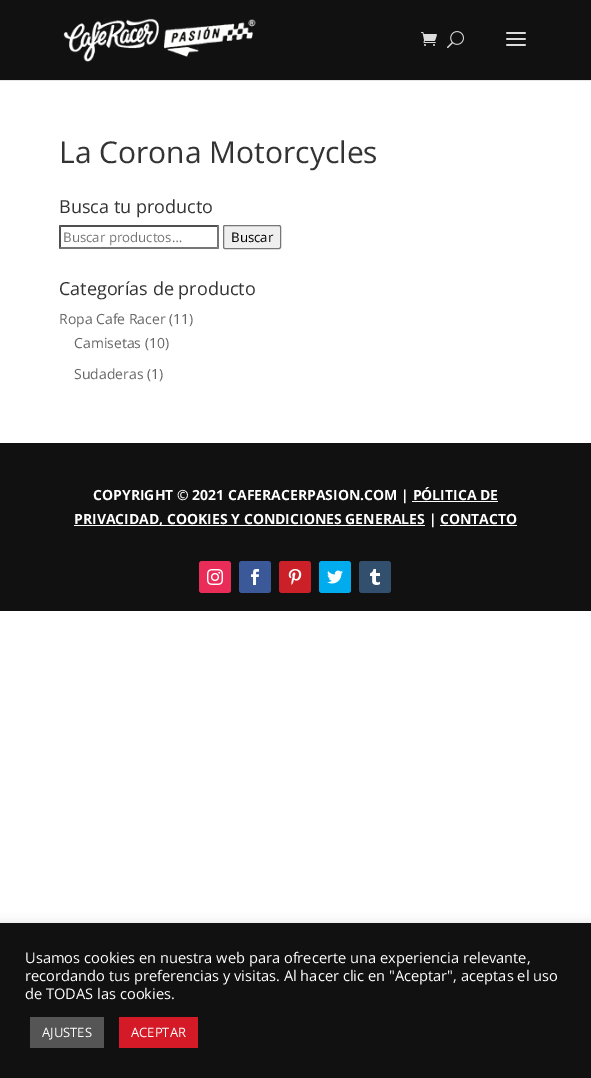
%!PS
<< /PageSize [591 1078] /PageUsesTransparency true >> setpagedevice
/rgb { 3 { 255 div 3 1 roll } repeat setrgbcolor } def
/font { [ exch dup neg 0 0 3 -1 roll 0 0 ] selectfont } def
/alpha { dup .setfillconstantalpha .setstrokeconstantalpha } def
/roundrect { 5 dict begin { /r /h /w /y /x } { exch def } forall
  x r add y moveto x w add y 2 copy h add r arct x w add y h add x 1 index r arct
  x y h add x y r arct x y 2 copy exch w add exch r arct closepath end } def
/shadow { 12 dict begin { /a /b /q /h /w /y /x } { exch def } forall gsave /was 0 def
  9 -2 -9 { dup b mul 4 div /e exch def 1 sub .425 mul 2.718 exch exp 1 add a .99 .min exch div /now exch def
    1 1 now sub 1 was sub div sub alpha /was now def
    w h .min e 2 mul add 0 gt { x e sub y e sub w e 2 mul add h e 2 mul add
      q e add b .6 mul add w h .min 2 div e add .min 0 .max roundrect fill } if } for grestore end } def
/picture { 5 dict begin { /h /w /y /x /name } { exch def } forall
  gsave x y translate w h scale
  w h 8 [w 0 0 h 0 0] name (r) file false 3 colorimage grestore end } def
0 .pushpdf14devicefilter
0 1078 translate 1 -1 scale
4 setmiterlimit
255 255 255 rgb
0 0 591 1078 rectfill
230 230 230 rgb
0 80 591 1 rectfill
17 17 17 rgb
0 0 591 80 rectfill
(img/1.rgb) 63 18 193 44 picture
(img/2.rgb) 421 32 16 14 picture
(img/3.rgb) 447 31 17 18 picture
(img/4.rgb) 506 32 20 14 picture
79 79 79 rgb
59 225 moveto 219 225 lineto 217 227 lineto 61 227 lineto closepath fill
118 118 118 rgb
219 225 moveto 219 249 lineto 217 247 lineto 217 227 lineto closepath fill
219 249 moveto 59 249 lineto 61 247 lineto 217 247 lineto closepath fill
79 79 79 rgb
59 249 moveto 59 225 lineto 61 227 lineto 61 247 lineto closepath fill
239 239 239 rgb
223.5 225.5 57 23 1.5 roundrect gsave fill grestore
118 118 118 rgb
stroke
[
  [0 443 591 168 17 17 17]
  [412 501 86 1 255 255 255]
  [74 525 351 1 255 255 255]
  [440 525 77 1 255 255 255]
] { aload pop rgb rectfill } forall
234 44 89 rgb
199 561 32 32 3 roundrect fill
(img/5.rgb) 207 569 16 16 picture
59 89 152 rgb
239 561 32 32 3 roundrect fill
(img/6.rgb) 251 569 8 16 picture
203 32 39 rgb
279 561 32 32 3 roundrect fill
(img/7.rgb) 288 569 14 16 picture
0 172 237 rgb
319 561 32 32 3 roundrect fill
(img/8.rgb) 327 570 16 14 picture
50 80 109 rgb
359 561 32 32 3 roundrect fill
(img/9.rgb) 370 569 10 16 picture
172 171 171 rgb
0 922 591 155 0 5 0.3 shadow
[
  [0 923 591 155 17 17 17]
  [30 1017 74 31 85 85 85]
  [119 1017 79 31 213 26 39]
] { aload pop rgb rectfill } forall
/OpenSans-Regular 30 font
51 51 51 rgb
59 163 moveto (La Corona Motorcycles) show
/OpenSans-Regular 18 font
59 213 moveto (Busca tu producto) show
/OpenSans-Regular 13.25 font
117 117 117 rgb
63 242 moveto (Buscar productos…) show
0 0 0 rgb
231 242 moveto (Buscar) show
/OpenSans-Regular 18 font
51 51 51 rgb
59 295 moveto (Categorías de producto) show
/OpenSans-Regular 14 font
102 102 102 rgb
[
  [(Ropa Cafe Racer \(11\)) 59 324]
  [(Camisetas \(10\)) 74 348]
  [(Sudaderas \(1\)) 74 379]
] { aload pop moveto show } forall
/OpenSans-Bold 14 font
255 255 255 rgb
93 500 moveto (COPYRIGHT © 2021 CAFERACERPASION.COM | PÓLITICA DE) show
74 524 moveto (PRIVACIDAD, COOKIES Y CONDICIONES GENERALES | CONTACTO) show
/OpenSans-Regular 14.65 font
[
  [(Usamos cookies en nuestra web para ofrecerte una experiencia relevante,) 25 963]
  [(recordando tus preferencias y visitas. Al hacer clic en "Aceptar", aceptas el uso) 25 981]
  [(de TODAS las cookies.) 25 999]
] { aload pop moveto show } forall
/OpenSans-Regular 13 font
42 1037 moveto (AJUSTES) show
131 1037 moveto (ACEPTAR) show
.poppdf14devicefilter showpage
